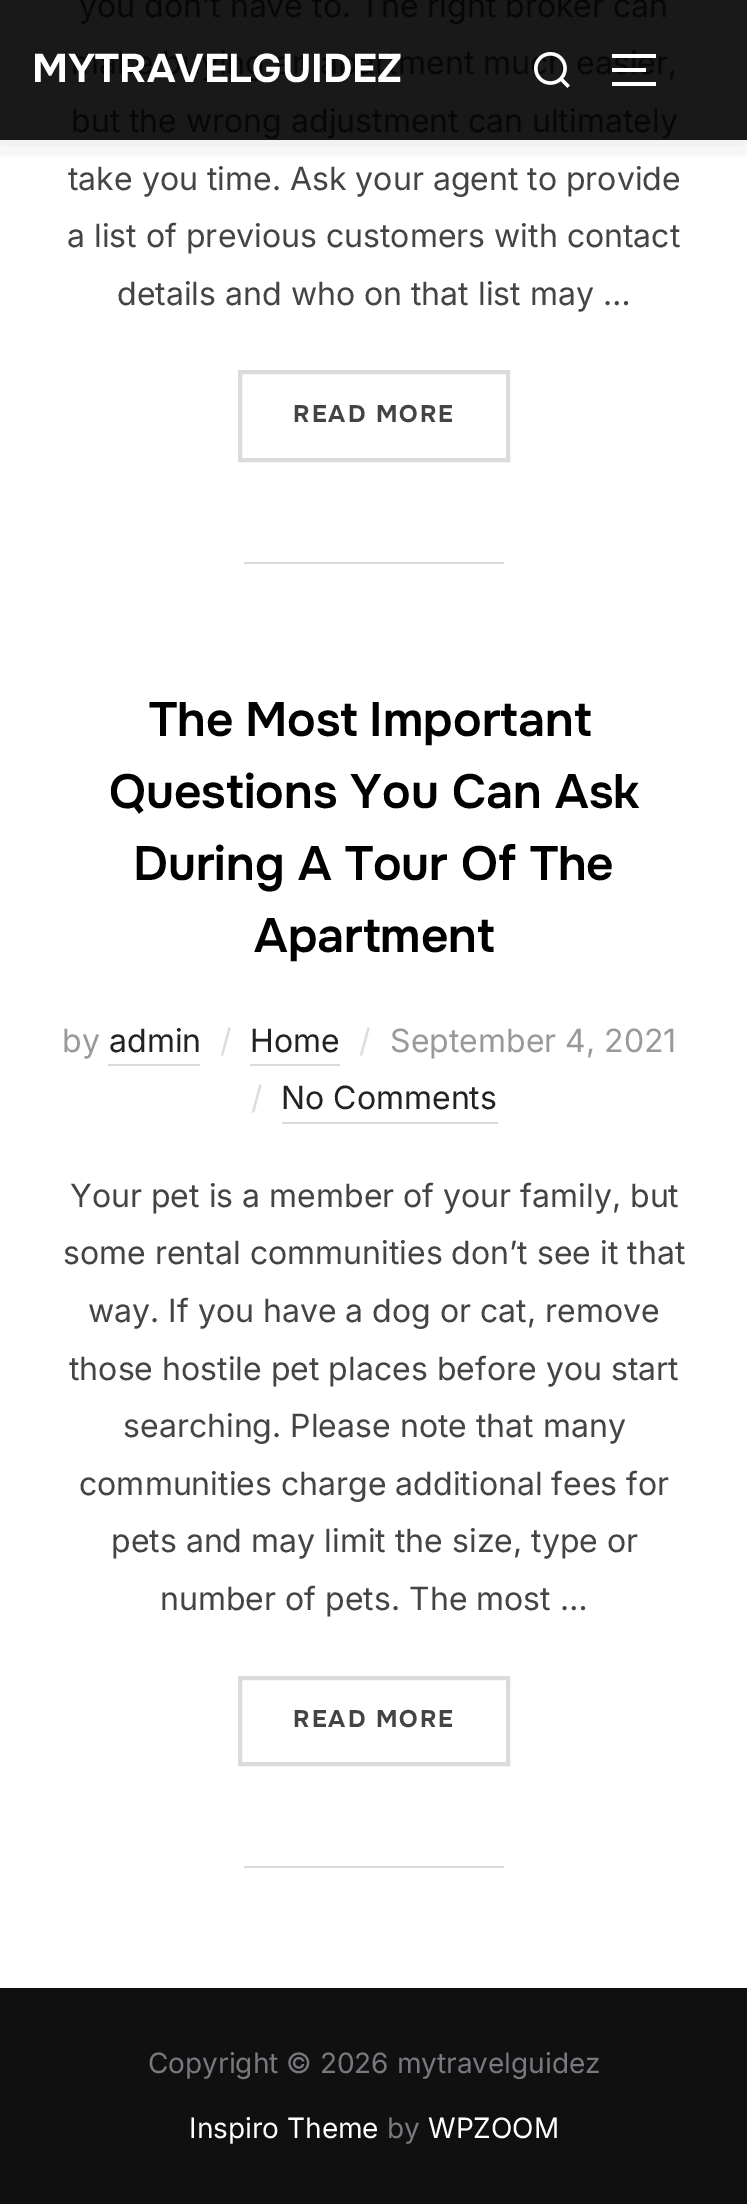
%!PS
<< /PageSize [747 2204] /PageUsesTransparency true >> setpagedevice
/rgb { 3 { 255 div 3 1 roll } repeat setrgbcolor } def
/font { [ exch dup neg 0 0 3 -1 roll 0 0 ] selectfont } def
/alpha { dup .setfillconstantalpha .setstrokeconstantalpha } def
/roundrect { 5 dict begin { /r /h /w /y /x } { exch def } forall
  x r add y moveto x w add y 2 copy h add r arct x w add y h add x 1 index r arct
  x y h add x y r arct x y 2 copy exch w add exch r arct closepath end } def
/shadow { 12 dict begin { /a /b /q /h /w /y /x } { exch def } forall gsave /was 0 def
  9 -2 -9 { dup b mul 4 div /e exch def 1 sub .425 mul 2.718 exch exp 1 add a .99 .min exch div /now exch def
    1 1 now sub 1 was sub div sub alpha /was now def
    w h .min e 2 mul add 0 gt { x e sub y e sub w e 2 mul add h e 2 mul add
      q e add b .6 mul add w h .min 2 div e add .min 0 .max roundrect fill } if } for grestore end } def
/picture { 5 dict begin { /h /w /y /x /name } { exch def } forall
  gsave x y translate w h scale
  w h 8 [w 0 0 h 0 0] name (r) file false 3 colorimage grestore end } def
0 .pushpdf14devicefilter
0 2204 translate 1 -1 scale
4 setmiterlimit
255 255 255 rgb
0 0 747 2204 rectfill
25 25 25 rgb
0 0 747 140 rectfill
219 219 219 rgb
4 setlinewidth
240 372 268 88 rectstroke
[
  [244 562 260 2 219 219 219]
  [108 1064 92 2 219 219 219]
  [250 1064 90 2 219 219 219]
  [282 1122 216 2 219 219 219]
] { aload pop rgb rectfill } forall
240 1678 268 86 rectstroke
244 1866 260 2 rectfill
16 16 16 rgb
0 1988 747 216 rectfill
gsave
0 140 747 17 rectclip
0 0 0 rgb
-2 -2 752 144 0 18 0.1 shadow
grestore
255 255 255 rgb
612 82 44 4 rectfill
/Inter-Regular 32 font
7 7 7 rgb
[
  [(you don’t have to. The right broker can) 79 17]
  [(make buying an apartment much easier,) 71 74]
  [(but the wrong adjustment can ultimately) 71 132]
] { aload pop moveto show } forall
68 68 68 rgb
[
  [(take you time. Ask your agent to provide) 68 190]
  [(a list of previous customers with contact) 67 247]
  [(details and who on that list may …) 117 305]
] { aload pop moveto show } forall
/Onest-Bold 24 font
293 422 moveto 2 0 (READ MORE) ashow
/Onest-SemiBold 48 font
0 0 0 rgb
149 736 moveto -2 0 32 (The Most Important) widthshow
[
  [(Questions You Can Ask) 109 808]
  [(During A Tour Of The) 133 880]
  [(Apartment) 254 952]
] { aload pop moveto show } forall
/Inter-Regular 32 font
153 153 153 rgb
62 1052 moveto (by) show
34 34 34 rgb
109 1052 moveto (admin) show
219 221 221 rgb
220 1052 moveto (/) show
34 34 34 rgb
250 1052 moveto (Home) show
219 221 221 rgb
359 1052 moveto (/) show
153 153 153 rgb
390 1052 moveto (September 4, 2021) show
219 221 221 rgb
251 1109 moveto (/) show
34 34 34 rgb
281 1109 moveto (No Comments) show
68 68 68 rgb
[
  [(Your pet is a member of your family, but) 70 1207]
  [(some rental communities don’t see it that) 63 1264]
  [(way. If you have a dog or cat, remove) 88 1322]
  [(those hostile pet places before you start) 69 1380]
  [(searching. Please note that many) 123 1437]
  [(communities charge additional fees for) 79 1495]
  [(pets and may limit the size, type or) 111 1552]
  [(number of pets. The most …) 160 1610]
] { aload pop moveto show } forall
/Onest-Bold 24 font
293 1727 moveto 2 0 (READ MORE) ashow
/Inter-Regular 28 font
120 120 127 rgb
148 2073 moveto (Copyright © 2026 mytravelguidez) show
255 255 255 rgb
189 2138 moveto (Inspiro Theme) show
120 120 127 rgb
387 2138 moveto (by) show
255 255 255 rgb
428 2138 moveto (WPZOOM) show
/Onest-Bold 40 font
32 82 moveto (MYTRAVELGUIDEZ) show
(img/1.rgb) 534 52 36 36 picture
612 54 44 4 rectfill
612 68 34 4 rectfill
.poppdf14devicefilter showpage
